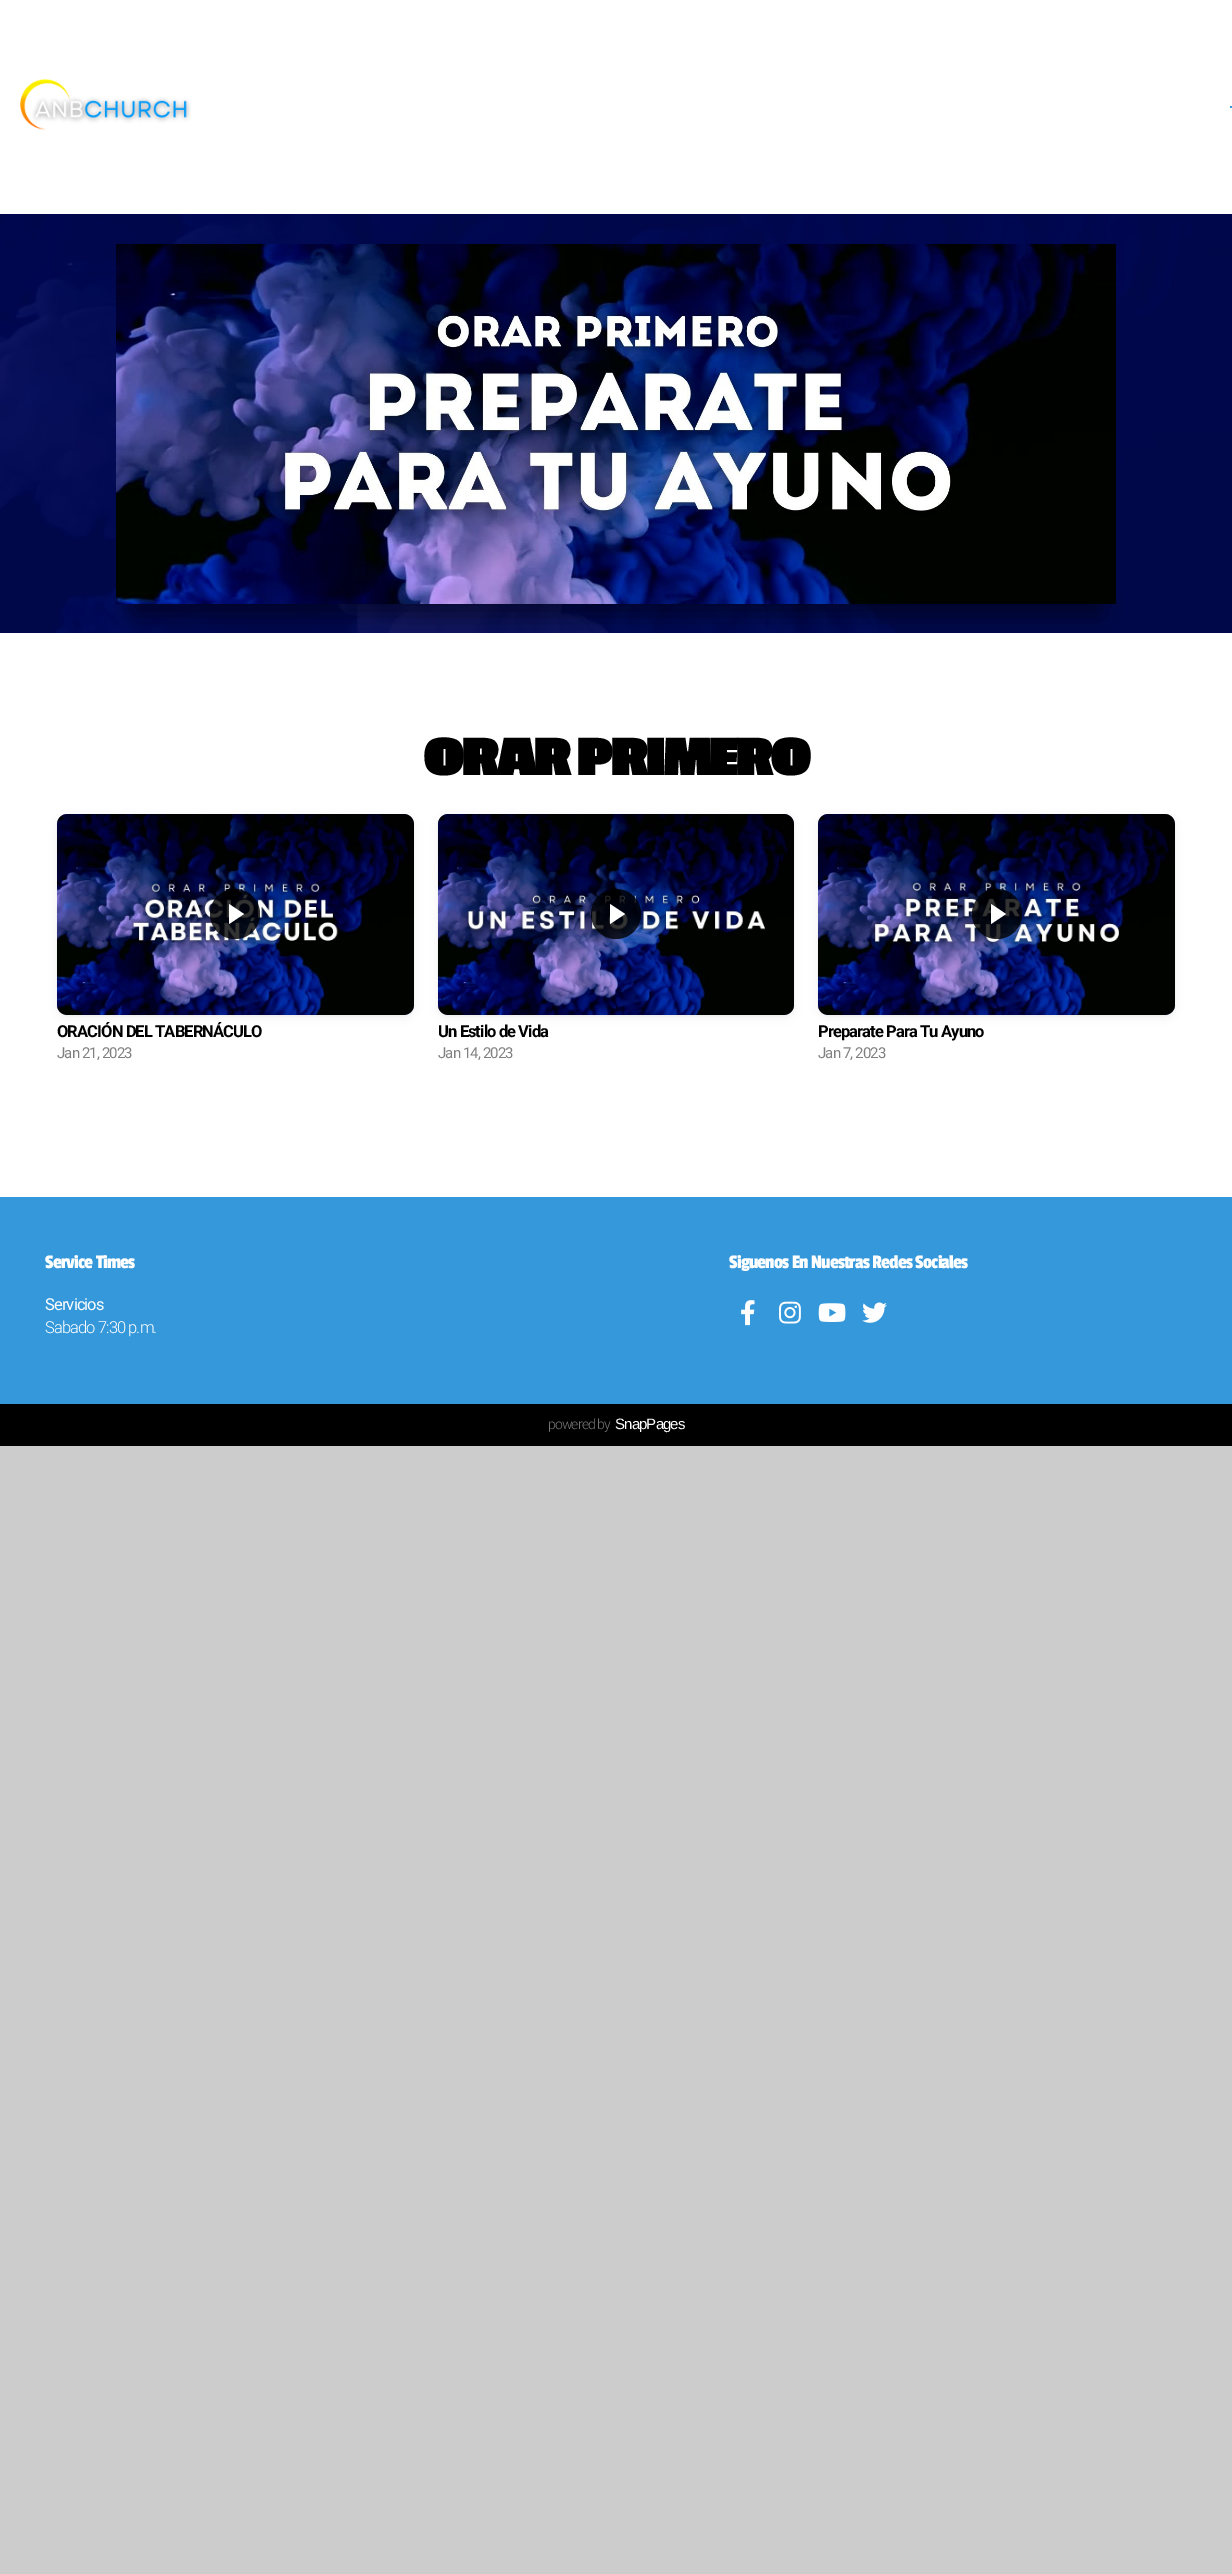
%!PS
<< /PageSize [1232 2574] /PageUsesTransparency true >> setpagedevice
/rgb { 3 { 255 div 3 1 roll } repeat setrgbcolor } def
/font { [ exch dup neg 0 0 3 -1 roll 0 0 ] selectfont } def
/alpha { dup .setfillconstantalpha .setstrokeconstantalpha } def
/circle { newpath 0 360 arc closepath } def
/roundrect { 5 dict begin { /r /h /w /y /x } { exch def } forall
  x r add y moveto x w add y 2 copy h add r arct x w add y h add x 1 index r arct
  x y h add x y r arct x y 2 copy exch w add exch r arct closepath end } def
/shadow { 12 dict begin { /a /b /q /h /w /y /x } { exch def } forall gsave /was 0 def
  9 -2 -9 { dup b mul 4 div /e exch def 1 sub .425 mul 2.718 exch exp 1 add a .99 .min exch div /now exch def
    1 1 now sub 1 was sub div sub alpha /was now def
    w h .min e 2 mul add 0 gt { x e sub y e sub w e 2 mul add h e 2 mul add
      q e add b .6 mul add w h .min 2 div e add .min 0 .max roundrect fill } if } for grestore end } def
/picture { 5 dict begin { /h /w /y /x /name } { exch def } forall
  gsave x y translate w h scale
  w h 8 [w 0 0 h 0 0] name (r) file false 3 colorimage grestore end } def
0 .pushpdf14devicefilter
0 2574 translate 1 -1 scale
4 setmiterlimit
204 204 204 rgb
0 0 1232 2574 rectfill
255 255 255 rgb
0 0 1232 214 rectfill
(img/1.rgb) 20 79 171 51 picture
52 152 219 rgb
1230 106 2 2 rectfill
(img/2.rgb) 0 214 1232 419 picture
0 0 0 rgb
130 593 972 22 11 12.5 0.5 shadow
(img/3.rgb) 116 244 1000 360 picture
255 255 255 rgb
0 633 1232 564 rectfill
0 0 0 rgb
57 815 357 201 10 1 0.04 shadow
57 817 357 201 10 5 0.06 shadow
34 40 85 rgb
57 814 357 201 10 roundrect fill
(img/4.rgb) 57 814 357 201 picture
0.8 alpha
0 0 0 rgb
235 914 25 circle fill
1 alpha
255 255 255 rgb
229 924 moveto 229 904 lineto 244 914 lineto closepath fill
0 0 0 rgb
438 815 356 201 10 1 0.04 shadow
438 817 356 201 10 5 0.06 shadow
24 31 79 rgb
438 814 356 201 10 roundrect fill
(img/5.rgb) 438 814 356 201 picture
0.8 alpha
0 0 0 rgb
616 914 25 circle fill
1 alpha
255 255 255 rgb
610 924 moveto 610 904 lineto 625 914 lineto closepath fill
0 0 0 rgb
818 815 357 201 10 1 0.04 shadow
818 817 357 201 10 5 0.06 shadow
32 38 84 rgb
818 814 357 201 10 roundrect fill
(img/6.rgb) 818 814 357 201 picture
0.8 alpha
0 0 0 rgb
997 914 25 circle fill
1 alpha
255 255 255 rgb
991 924 moveto 991 904 lineto 1006 914 lineto closepath fill
52 152 219 rgb
0 1197 1232 207 rectfill
(img/7.rgb) 741 1300 14 26 picture
(img/8.rgb) 779 1301 22 23 picture
(img/9.rgb) 818 1303 28 19 picture
(img/10.rgb) 862 1302 25 21 picture
0 0 0 rgb
0 1404 1232 42 rectfill
/PassionOne-Black 60 font
424 775 moveto -2.4 0 (ORAR PRIMERO) ashow
/Roboto-Bold 16.5 font
57 1037 moveto -0.9 0 (ORACIÓN DEL TABERNÁCULO) ashow
/Roboto-Regular 15 font
128 128 128 rgb
57 1058 moveto -0.9 0 (Jan 21, 2023) ashow
/Roboto-Bold 16.5 font
0 0 0 rgb
438 1037 moveto -0.9 0 (Un Estilo de Vida) ashow
/Roboto-Regular 15 font
128 128 128 rgb
438 1058 moveto -0.9 0 (Jan 14, 2023) ashow
/Roboto-Bold 16.5 font
0 0 0 rgb
818 1037 moveto -0.9 0 (Preparate Para Tu Ayuno) ashow
/Roboto-Regular 15 font
128 128 128 rgb
818 1058 moveto -0.9 0 (Jan 7, 2023) ashow
/PassionOne-Regular 20 font
255 255 255 rgb
45 1268 moveto -0.8 0 (Service Times) ashow
/Roboto-Regular 16.5 font
45 1310 moveto -0.9 0 (Servicios) ashow
/Roboto-Light 16.5 font
45 1333 moveto -0.9 0 (Sabado 7:30 p.m.) ashow
/PassionOne-Regular 20 font
729 1268 moveto -0.8 0 (Siguenos En Nuestras Redes Sociales) ashow
/Roboto-Light 14 font
119 119 119 rgb
548 1429 moveto -0.9 0 (powered by) ashow
/LiberationSans-Regular 15 font
255 255 255 rgb
615 1429 moveto -0.9 0 (SnapPages) ashow
.poppdf14devicefilter showpage
